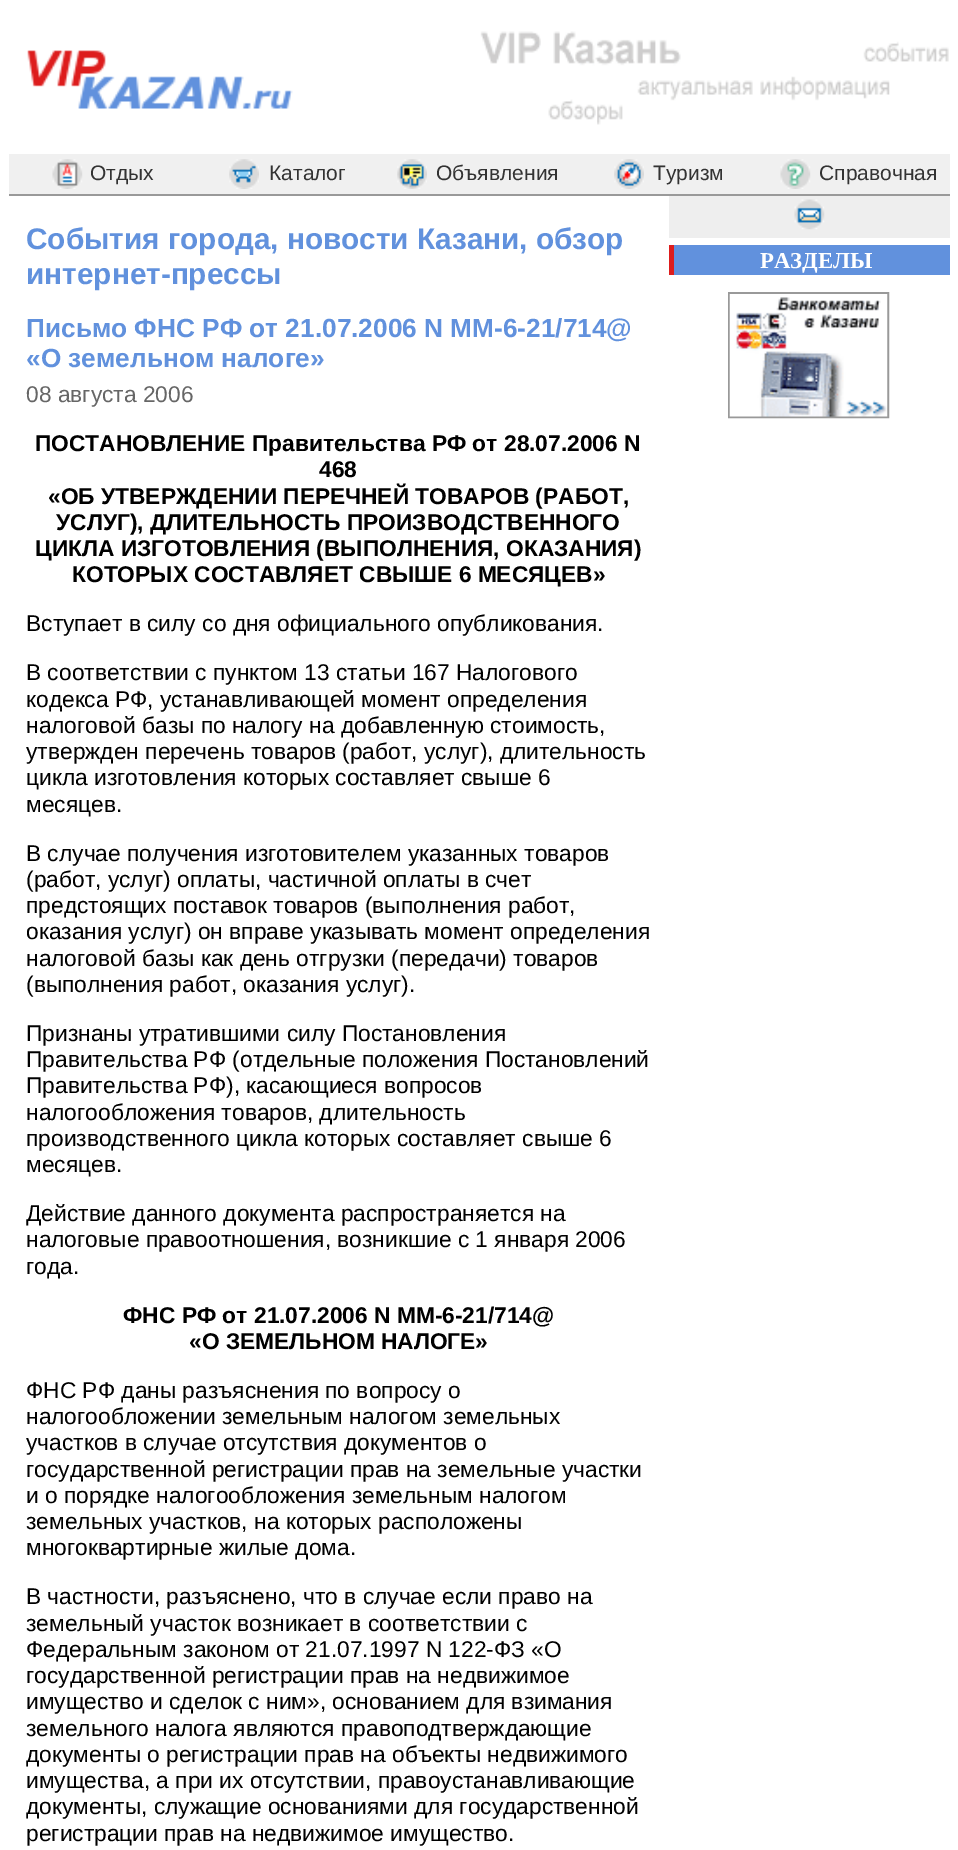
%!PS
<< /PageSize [958 1850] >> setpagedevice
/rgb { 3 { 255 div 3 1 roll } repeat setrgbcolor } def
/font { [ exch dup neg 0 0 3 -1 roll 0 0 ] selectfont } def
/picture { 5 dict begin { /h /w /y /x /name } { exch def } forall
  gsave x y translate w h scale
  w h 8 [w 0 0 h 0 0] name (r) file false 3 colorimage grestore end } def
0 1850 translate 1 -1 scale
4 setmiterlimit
255 255 255 rgb
0 0 958 1850 rectfill
(img/1.rgb) 27 50 266 59 picture
(img/2.rgb) 480 31 469 94 picture
240 240 240 rgb
9 154 941 40 rectfill
153 153 153 rgb
9 194 941 2 rectfill
(img/3.rgb) 52 159 31 30 picture
(img/4.rgb) 229 159 30 30 picture
(img/5.rgb) 397 159 30 30 picture
(img/6.rgb) 614 159 30 30 picture
(img/7.rgb) 780 159 31 30 picture
238 238 238 rgb
669 196 281 42 rectfill
(img/8.rgb) 794 199 31 31 picture
97 145 221 rgb
674 245 276 30 rectfill
221 29 29 rgb
669 245 5 30 rectfill
153 153 153 rgb
2 setlinewidth
729 293 159 124 rectstroke
(img/9.rgb) 729 294 159 123 picture
/LiberationSans-Regular 21 font
51 51 51 rgb
[
  [(Отдых) 90 180]
  [(Каталог) 269 180]
  [(Объявления) 436 180]
  [(Туризм) 653 180]
  [(Справочная) 819 180]
] { aload pop moveto show } forall
/LiberationSans-Bold 29.75 font
97 145 221 rgb
26 249 moveto (События города, новости Казани, обзор) show
26 284 moveto (интернет-прессы) show
/LiberationSans-Bold 26.25 font
26 337 moveto (Письмо ФНС РФ от 21.07.2006 N ММ-6-21/714@) show
26 367 moveto («О земельном налоге») show
/LiberationSans-Regular 22.75 font
102 102 102 rgb
26 402 moveto (08 августа 2006) show
/LiberationSans-Bold 22.75 font
0 0 0 rgb
[
  [(ПОСТАНОВЛЕНИЕ Правительства РФ от 28.07.2006 N) 35 451]
  [(468) 319 477]
  [(«ОБ УТВЕРЖДЕНИИ ПЕРЕЧНЕЙ ТОВАРОВ \(РАБОТ,) 48 504]
  [(УСЛУГ\), ДЛИТЕЛЬНОСТЬ ПРОИЗВОДСТВЕННОГО) 56 530]
  [(ЦИКЛА ИЗГОТОВЛЕНИЯ \(ВЫПОЛНЕНИЯ, ОКАЗАНИЯ\)) 35 556]
  [(КОТОРЫХ СОСТАВЛЯЕТ СВЫШЕ 6 МЕСЯЦЕВ») 72 582]
] { aload pop moveto show } forall
/LiberationSans-Regular 22.75 font
[
  [(Вступает в силу со дня официального опубликования.) 26 631]
  [(В соответствии с пунктом 13 статьи 167 Налогового) 26 680]
  [(кодекса РФ, устанавливающей момент определения) 26 707]
  [(налоговой базы по налогу на добавленную стоимость,) 26 733]
  [(утвержден перечень товаров \(работ, услуг\), длительность) 26 759]
  [(цикла изготовления которых составляет свыше 6) 26 785]
  [(месяцев.) 26 812]
  [(В случае получения изготовителем указанных товаров) 26 861]
  [(\(работ, услуг\) оплаты, частичной оплаты в счет) 26 887]
  [(предстоящих поставок товаров \(выполнения работ,) 26 913]
  [(оказания услуг\) он вправе указывать момент определения) 26 939]
  [(налоговой базы как день отгрузки \(передачи\) товаров) 26 966]
  [(\(выполнения работ, оказания услуг\).) 26 992]
  [(Признаны утратившими силу Постановления) 26 1041]
  [(Правительства РФ \(отдельные положения Постановлений) 26 1067]
  [(Правительства РФ\), касающиеся вопросов) 26 1093]
  [(налогообложения товаров, длительность) 26 1120]
  [(производственного цикла которых составляет свыше 6) 26 1146]
  [(месяцев.) 26 1172]
  [(Действие данного документа распространяется на) 26 1221]
  [(налоговые правоотношения, возникшие с 1 января 2006) 26 1247]
  [(года.) 26 1274]
] { aload pop moveto show } forall
/LiberationSans-Bold 22.75 font
123 1323 moveto (ФНС РФ от 21.07.2006 N ММ-6-21/714@) show
189 1349 moveto («О ЗЕМЕЛЬНОМ НАЛОГЕ») show
/LiberationSans-Regular 22.75 font
[
  [(ФНС РФ даны разъяснения по вопросу о) 26 1398]
  [(налогообложении земельным налогом земельных) 26 1424]
  [(участков в случае отсутствия документов о) 26 1450]
  [(государственной регистрации прав на земельные участки) 26 1477]
  [(и о порядке налогообложения земельным налогом) 26 1503]
  [(земельных участков, на которых расположены) 26 1529]
  [(многоквартирные жилые дома.) 26 1555]
  [(В частности, разъяснено, что в случае если право на) 26 1604]
  [(земельный участок возникает в соответствии с) 26 1631]
  [(Федеральным законом от 21.07.1997 N 122-ФЗ «О) 26 1657]
  [(государственной регистрации прав на недвижимое) 26 1683]
  [(имущество и сделок с ним», основанием для взимания) 26 1709]
  [(земельного налога являются правоподтверждающие) 26 1736]
  [(документы о регистрации прав на объекты недвижимого) 26 1762]
  [(имущества, а при их отсутствии, правоустанавливающие) 26 1788]
  [(документы, служащие основаниями для государственной) 26 1814]
  [(регистрации прав на недвижимое имущество.) 26 1841]
] { aload pop moveto show } forall
/LiberationSerif-Bold 22.75 font
255 255 255 rgb
760 268 moveto (РАЗДЕЛЫ) show
showpage
